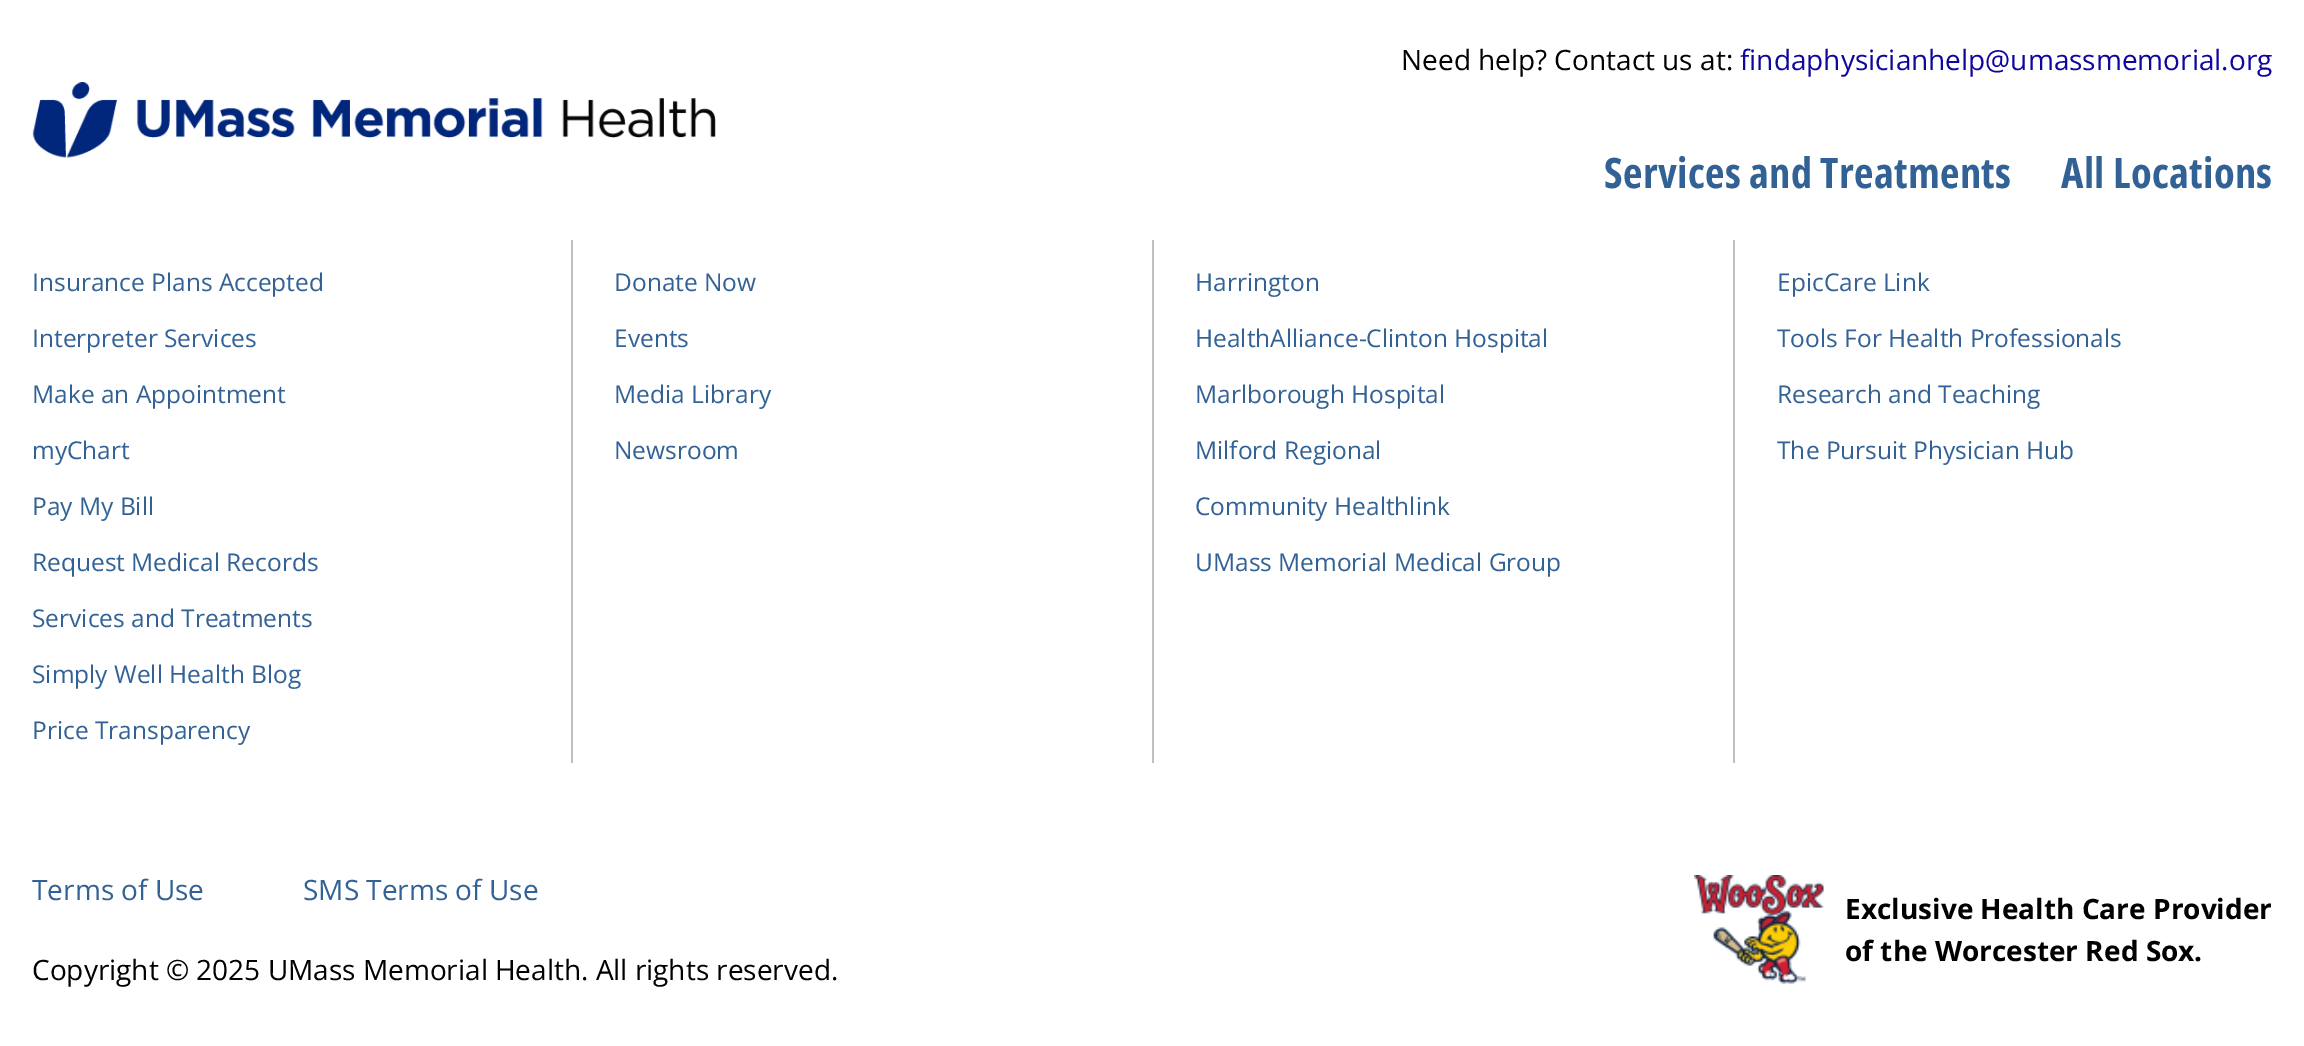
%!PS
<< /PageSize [2304 1046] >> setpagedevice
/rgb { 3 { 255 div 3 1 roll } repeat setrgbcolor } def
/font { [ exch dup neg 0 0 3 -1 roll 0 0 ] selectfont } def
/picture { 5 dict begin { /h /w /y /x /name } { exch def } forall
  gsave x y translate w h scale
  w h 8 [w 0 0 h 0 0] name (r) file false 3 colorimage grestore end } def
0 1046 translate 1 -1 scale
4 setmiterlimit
255 255 255 rgb
0 0 2304 1046 rectfill
(img/1.rgb) 32 82 684 76 picture
[
  [571 240 2 523 191 191 191]
  [1152 240 2 523 191 191 191]
  [1733 240 2 523 191 191 191]
] { aload pop rgb rectfill } forall
(img/2.rgb) 1694 875 130 109 picture
/OpenSans-Regular 28 font
0 0 0 rgb
1401 70 moveto (Need help? Contact us at:) show
16 6 159 rgb
1740 70 moveto (findaphysicianhelp@umassmemorial.org) show
/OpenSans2-Bold 42 font
50 98 149 rgb
1604 188 moveto 0.35 0 (Services and Treatments) ashow
2061 188 moveto 0.35 0 (All Locations) ashow
/OpenSans-Regular 24.5 font
[
  [(Insurance Plans Accepted) 32 291]
  [(Interpreter Services) 32 347]
  [(Make an Appointment) 32 403]
  [(myChart) 32 459]
  [(Pay My Bill) 32 515]
  [(Request Medical Records) 32 571]
  [(Services and Treatments) 32 627]
  [(Simply Well Health Blog) 32 683]
  [(Price Transparency) 32 739]
  [(Donate Now) 614 291]
  [(Events) 614 347]
  [(Media Library) 614 403]
  [(Newsroom) 614 459]
  [(Harrington) 1195 291]
  [(HealthAlliance-Clinton Hospital) 1195 347]
  [(Marlborough Hospital) 1195 403]
  [(Milford Regional) 1195 459]
  [(Community Healthlink) 1195 515]
  [(UMass Memorial Medical Group) 1195 571]
  [(EpicCare Link) 1777 291]
  [(Tools For Health Professionals) 1777 347]
  [(Research and Teaching) 1777 403]
  [(The Pursuit Physician Hub) 1777 459]
] { aload pop moveto show } forall
/OpenSans-Regular 28 font
32 900 moveto (Terms of Use) show
303 900 moveto (SMS Terms of Use) show
0 0 0 rgb
32 980 moveto (Copyright © 2025 UMass Memorial Health. All rights reserved.) show
/OpenSans-Bold 28 font
1845 919 moveto (Exclusive Health Care Provider) show
1845 961 moveto (of the Worcester Red Sox.) show
showpage
